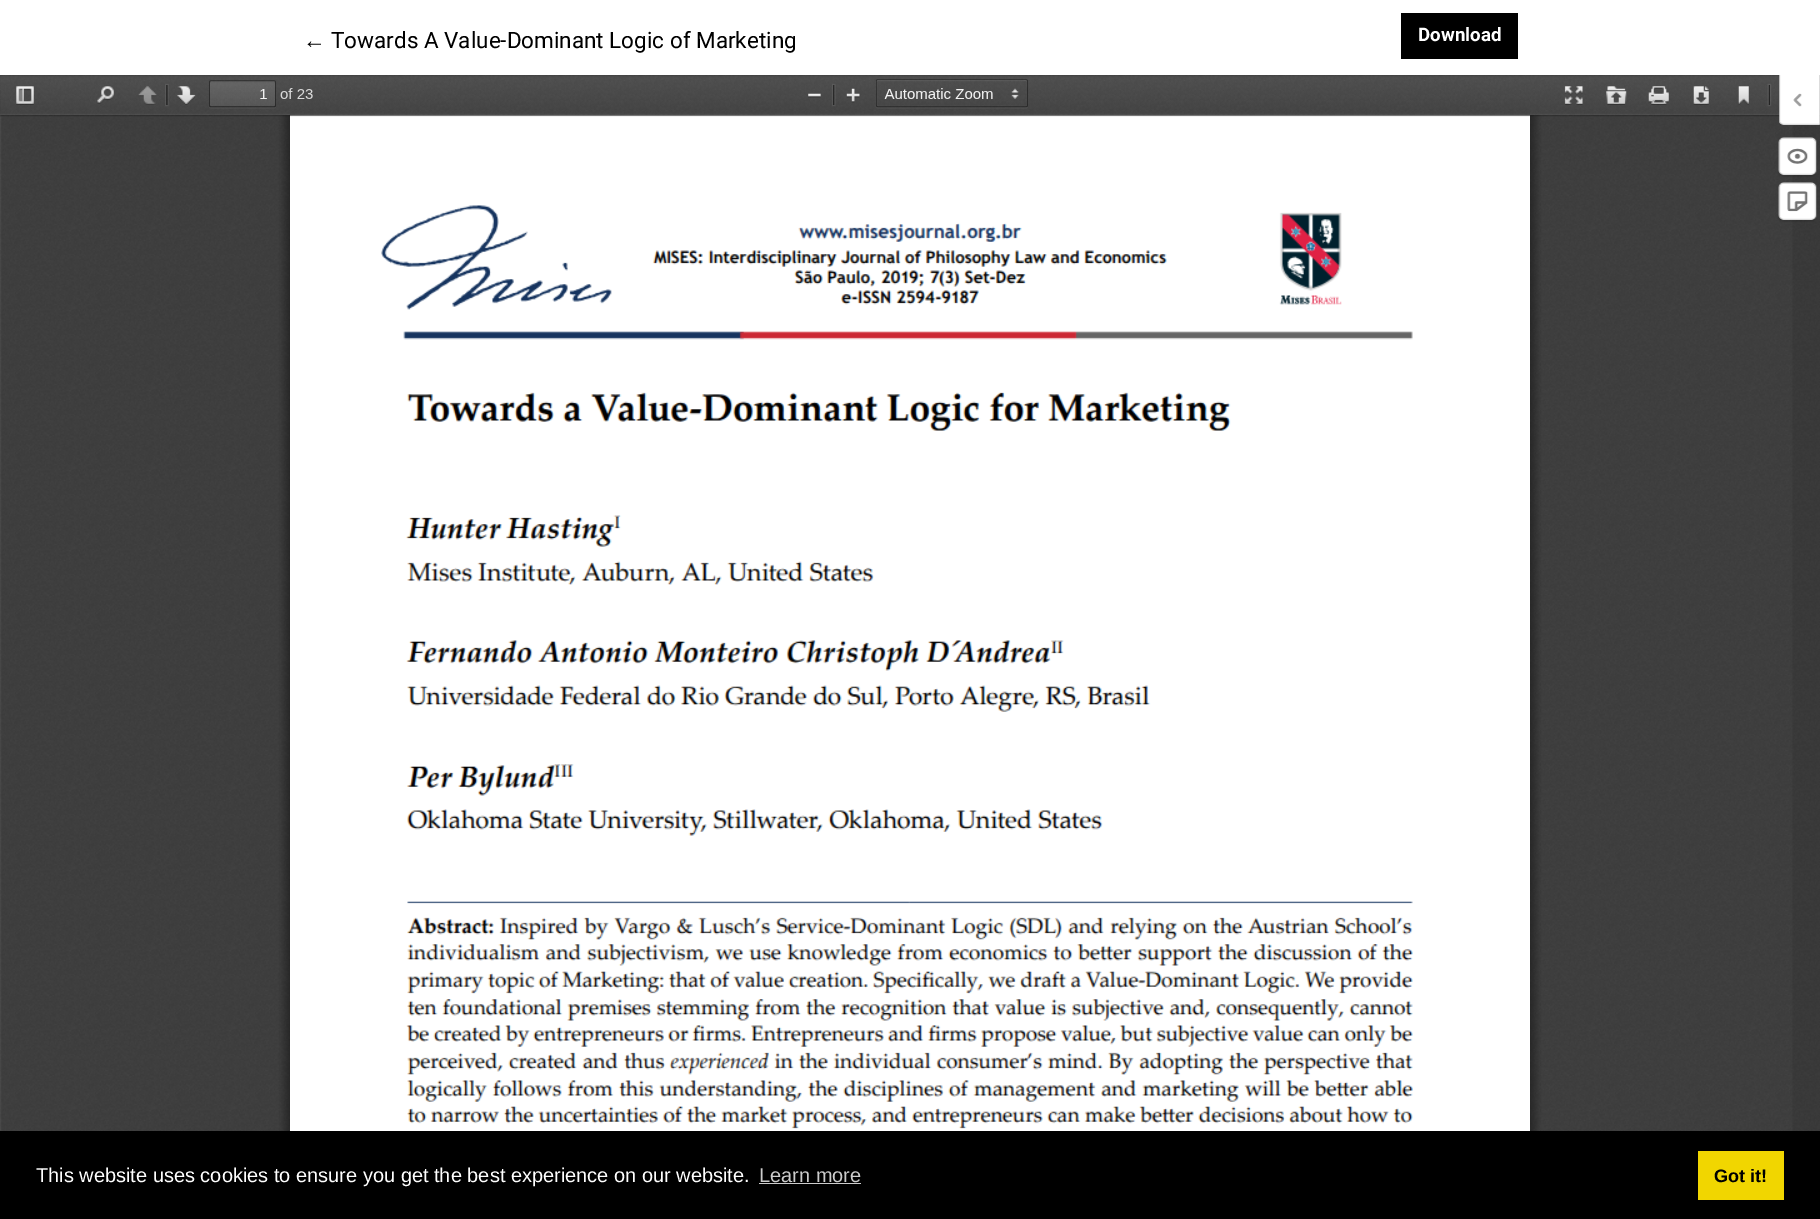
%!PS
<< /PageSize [1820 1219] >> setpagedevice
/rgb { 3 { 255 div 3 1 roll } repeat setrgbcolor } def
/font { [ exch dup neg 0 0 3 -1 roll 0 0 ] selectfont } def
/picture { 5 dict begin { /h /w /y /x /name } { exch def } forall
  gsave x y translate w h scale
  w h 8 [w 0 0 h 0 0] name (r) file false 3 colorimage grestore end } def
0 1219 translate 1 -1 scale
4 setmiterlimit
255 255 255 rgb
0 0 1820 1219 rectfill
0 0 0 rgb
1401 13 117 46 rectfill
(img/1.rgb) 0 75 1820 1056 picture
[
  [0 1131 1820 88 0 0 0]
  [759 1183 102 1 204 204 204]
  [1698 1151 86 49 241 214 0]
] { aload pop rgb rectfill } forall
/LiberationSans-Regular 22.5 font
0 0 0 rgb
303 48 moveto (←) show
/Roboto-Regular 22.5 font
331 48 moveto (Towards A Value-Dominant Logic of Marketing) show
/Roboto-Bold 18.75 font
255 255 255 rgb
1418 41 moveto (Download) show
/LiberationSans-Regular 20 font
36 1182 moveto (This website uses cookies to ensure you get the best experience on our website.) show
204 204 204 rgb
759 1182 moveto (Learn more) show
/LiberationSans-Bold 18 font
0 0 0 rgb
1714 1182 moveto (Got it!) show
showpage
